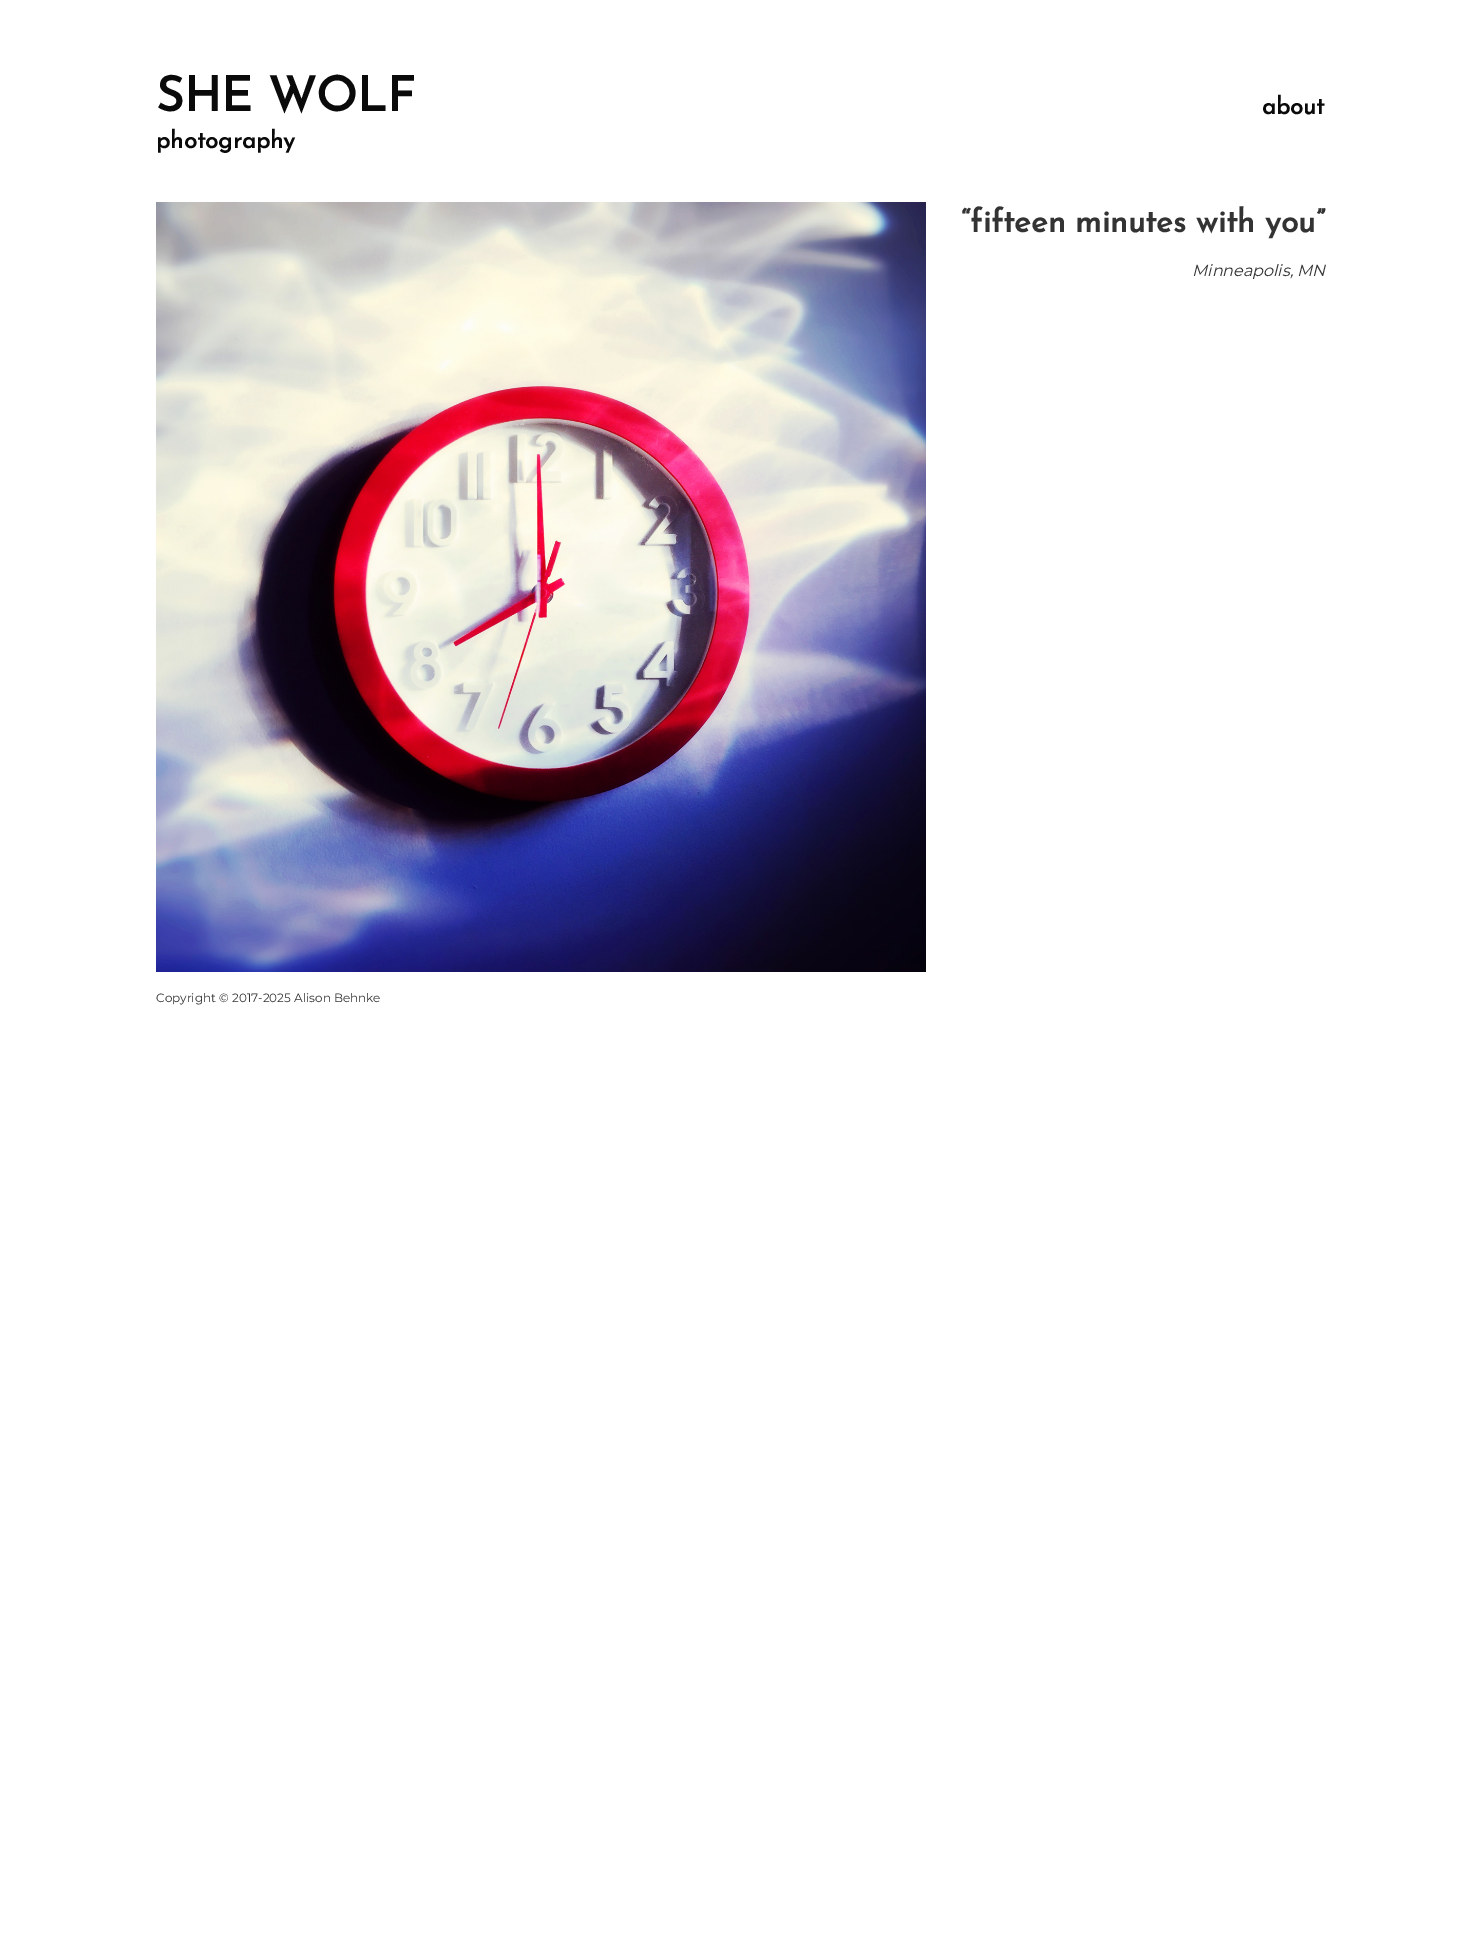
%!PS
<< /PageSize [1481 1959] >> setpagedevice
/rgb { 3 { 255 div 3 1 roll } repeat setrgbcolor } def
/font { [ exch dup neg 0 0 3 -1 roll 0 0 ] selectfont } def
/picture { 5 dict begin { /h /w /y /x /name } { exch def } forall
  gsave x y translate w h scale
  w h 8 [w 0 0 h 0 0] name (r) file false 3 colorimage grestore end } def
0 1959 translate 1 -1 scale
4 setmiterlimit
255 255 255 rgb
0 0 1481 1959 rectfill
(img/1.rgb) 156 202 770 770 picture
/JosefinSans-Bold 48 font
10 10 10 rgb
156 111 moveto (SHE WOLF) show
/JosefinSans-Bold 24 font
156 148 moveto (photography) show
1262 114 moveto (about) show
/JosefinSans-Bold 32 font
51 51 51 rgb
961 232 moveto (“fifteen minutes with you”) show
/Montserrat-ThinItalic 16 font
1192 276 moveto (Minneapolis, MN) show
/Montserrat-Thin 12 font
156 1002 moveto (Copyright © 2017-2025 Alison Behnke) show
showpage
